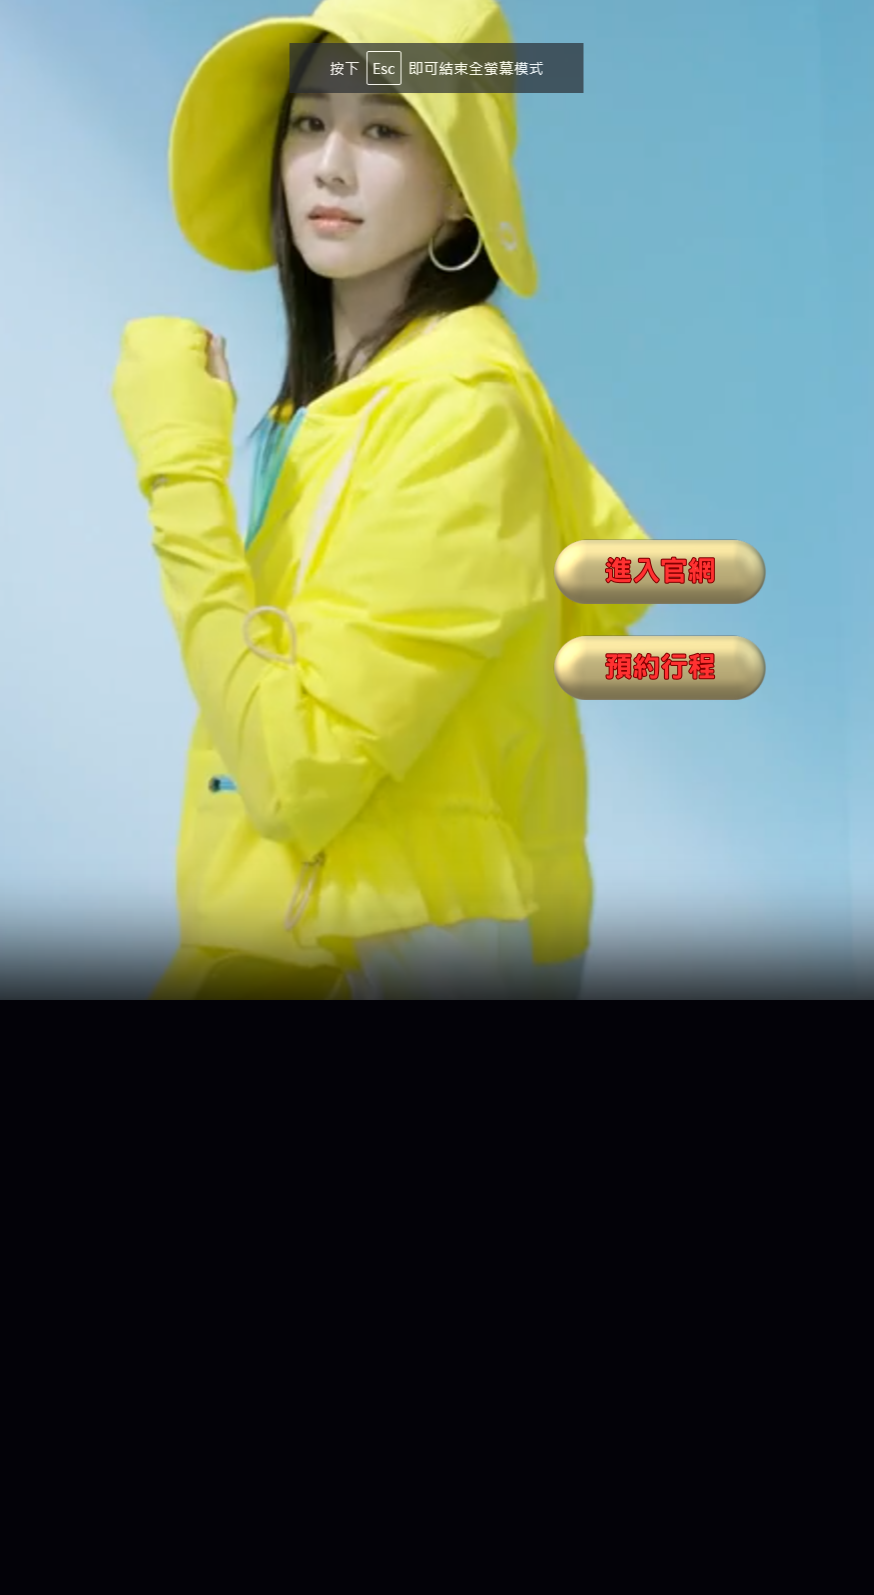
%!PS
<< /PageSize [874 1595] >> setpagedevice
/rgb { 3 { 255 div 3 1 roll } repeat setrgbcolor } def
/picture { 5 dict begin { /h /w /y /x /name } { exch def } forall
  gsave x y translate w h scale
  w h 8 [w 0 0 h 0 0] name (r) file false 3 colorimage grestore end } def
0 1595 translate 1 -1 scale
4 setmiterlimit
255 255 255 rgb
0 0 874 1595 rectfill
(img/1.rgb) 0 0 874 1595 picture
showpage
